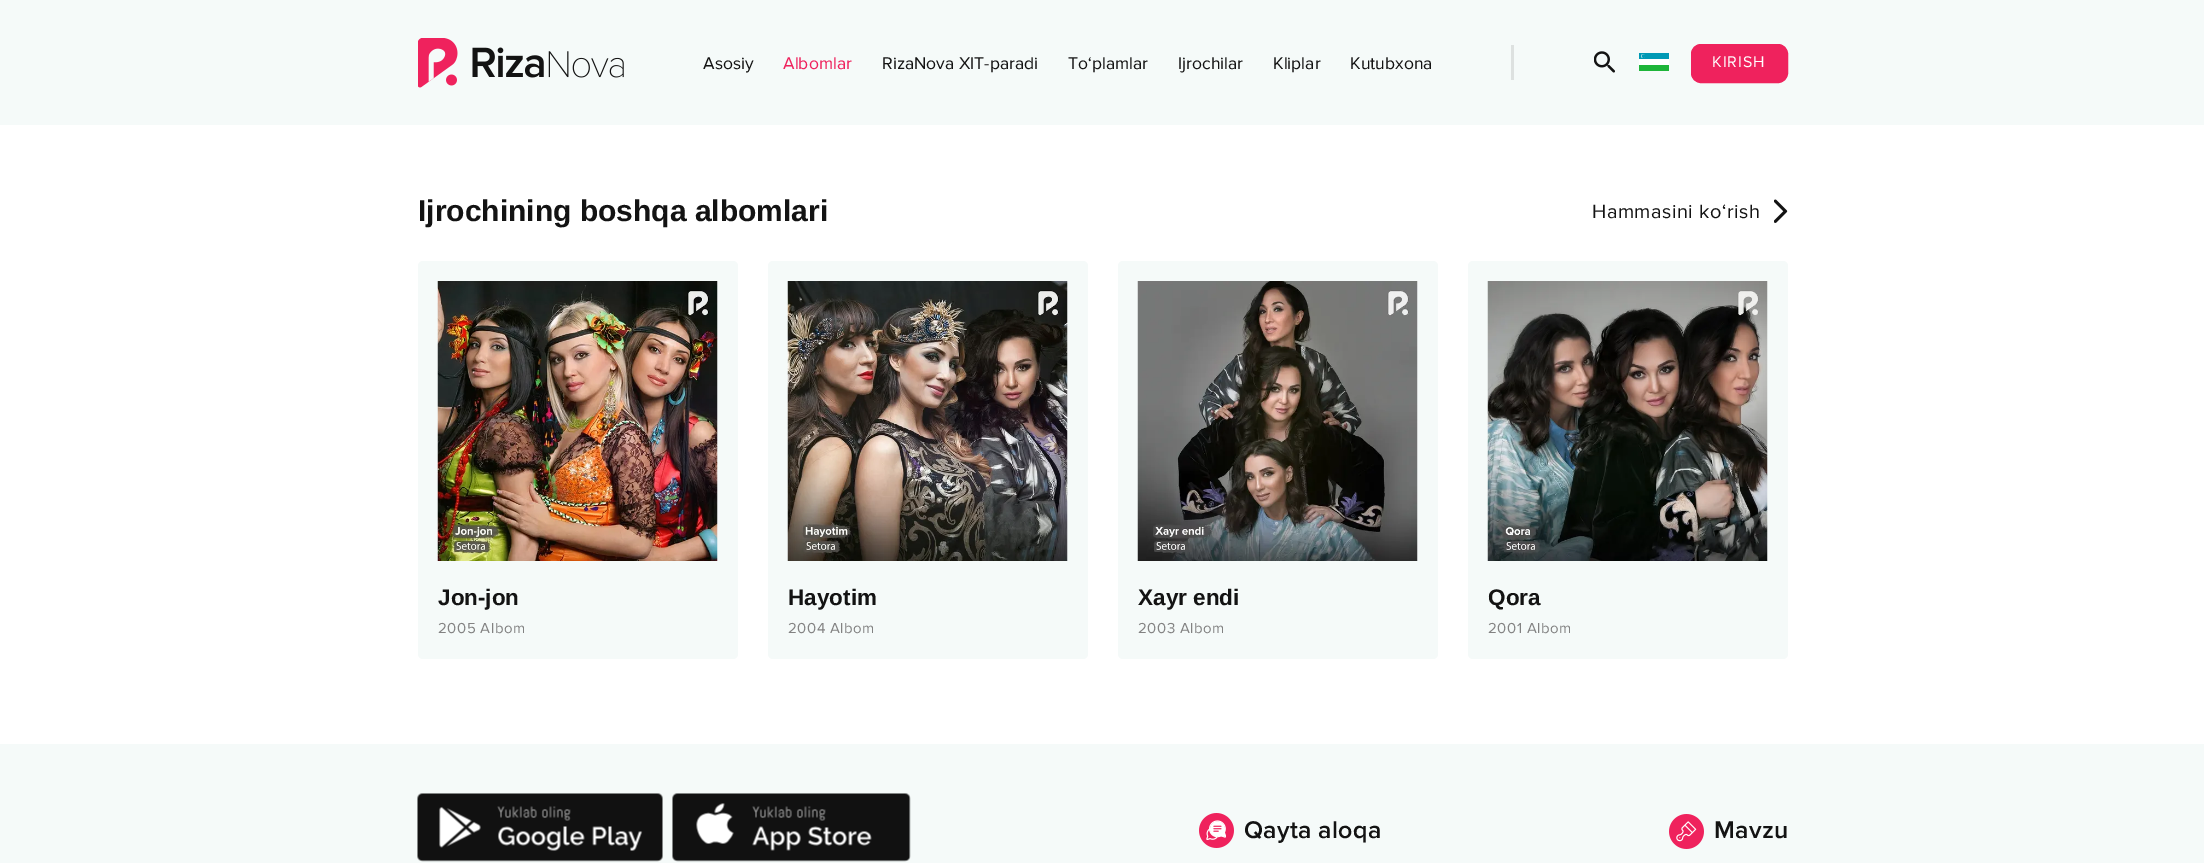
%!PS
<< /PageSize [2204 863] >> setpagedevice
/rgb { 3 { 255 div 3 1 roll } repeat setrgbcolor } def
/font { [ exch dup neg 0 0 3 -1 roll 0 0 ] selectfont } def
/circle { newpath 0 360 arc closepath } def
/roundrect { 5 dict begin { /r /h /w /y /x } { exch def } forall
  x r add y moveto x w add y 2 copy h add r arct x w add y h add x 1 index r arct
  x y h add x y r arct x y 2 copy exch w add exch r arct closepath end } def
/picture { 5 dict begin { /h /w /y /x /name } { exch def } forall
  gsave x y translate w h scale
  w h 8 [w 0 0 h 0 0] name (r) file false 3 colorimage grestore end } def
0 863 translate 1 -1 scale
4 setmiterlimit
255 255 255 rgb
0 0 2204 863 rectfill
245 250 249 rgb
0 0 2204 125 rectfill
(img/1.rgb) 418 38 206 50 picture
221 225 224 rgb
1511 45 3 35 rectfill
(img/2.rgb) 1594 51 21 22 picture
[
  [1639 65 30 6 30 181 58]
  [1639 53 30 6 0 153 181]
  [1639 59 30 6 255 255 255]
] { aload pop rgb rectfill } forall
1642.9 56.1 1.8 circle fill
0 153 181 rgb
1643.5 56.1 1.8 circle fill
239 34 93 rgb
1691.5 44.5 96 38 9.5 roundrect gsave fill grestore
stroke
(img/3.rgb) 1774 199 14 24 picture
245 250 249 rgb
418 261 320 398 5 roundrect fill
(img/4.rgb) 437 281 281 280 picture
768 261 320 398 5 roundrect fill
(img/5.rgb) 787 281 281 280 picture
1118 261 320 398 5 roundrect fill
(img/6.rgb) 1137 281 281 280 picture
1468 261 320 398 5 roundrect fill
(img/7.rgb) 1487 281 281 280 picture
0 744 2204 119 rectfill
(img/8.rgb) 417 793 246 69 picture
(img/9.rgb) 672 793 239 69 picture
(img/10.rgb) 1199 813 35 35 picture
(img/11.rgb) 1669 814 35 35 picture
/ProximaNova-Regular 17.5 font
19 19 19 rgb
703 69 moveto (Asosiy) show
239 34 93 rgb
783 69 moveto (Albomlar) show
19 19 19 rgb
[
  [(RizaNova XIT-paradi) 882 69]
  [(To‘plamlar) 1068 69]
  [(Ijrochilar) 1178 69]
  [(Kliplar) 1273 69]
  [(Kutubxona) 1350 69]
] { aload pop moveto show } forall
/ProximaNova-Regular 16 font
255 255 255 rgb
1712 67 moveto 1 0 (KIRISH) ashow
/LiberationSans-Bold 30 font
19 19 19 rgb
418 221 moveto (Ijrochining boshqa albomlari) show
/ProximaNova-Regular 20 font
1592 218 moveto 0.5 0 (Hammasini ko‘rish) ashow
/LiberationSans-Bold 22.5 font
438 605 moveto (Jon-jon) show
/ProximaNova-Regular 15 font
130 130 130 rgb
438 633 moveto 0.5 0 (2005 Albom) ashow
/LiberationSans-Bold 22.5 font
19 19 19 rgb
788 605 moveto (Hayotim) show
/ProximaNova-Regular 15 font
130 130 130 rgb
788 633 moveto 0.5 0 (2004 Albom) ashow
/LiberationSans-Bold 22.5 font
19 19 19 rgb
1138 605 moveto (Xayr endi) show
/ProximaNova-Regular 15 font
130 130 130 rgb
1138 633 moveto 0.5 0 (2003 Albom) ashow
/LiberationSans-Bold 22.5 font
19 19 19 rgb
1488 605 moveto (Qora) show
/ProximaNova-Regular 15 font
130 130 130 rgb
1488 633 moveto 0.5 0 (2001 Albom) ashow
/ProximaNova-SemiBold 25 font
19 19 19 rgb
1244 838 moveto 0.25 0 (Qayta aloqa) ashow
1714 838 moveto 0.25 0 (Mavzu) ashow
showpage
